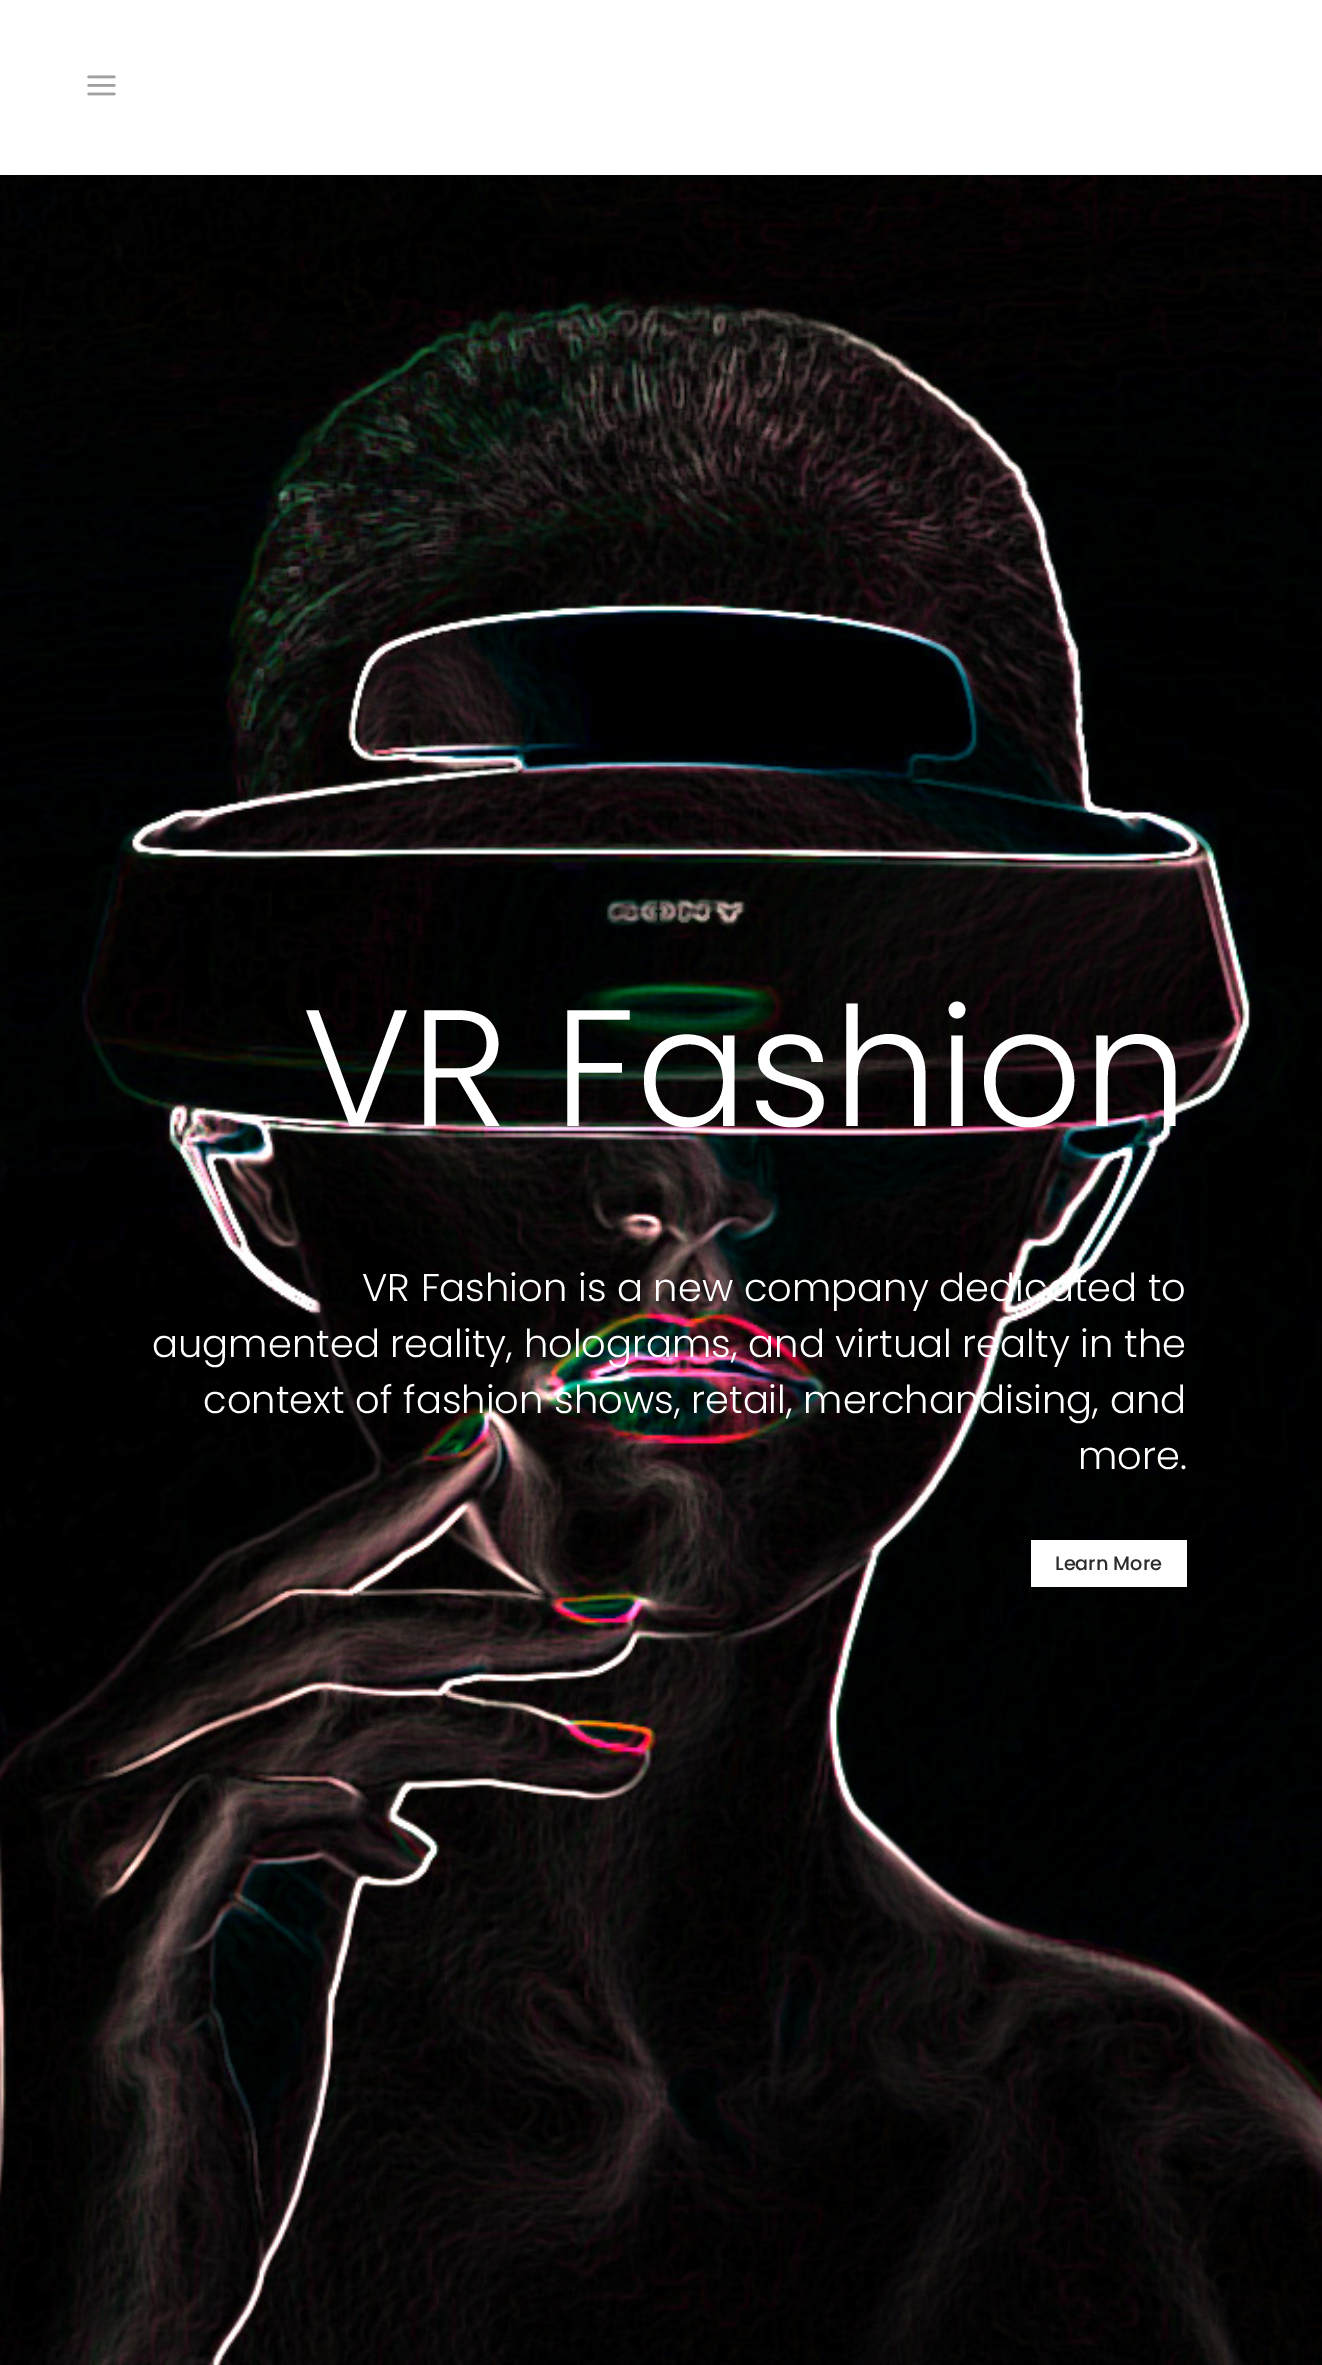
%!PS
<< /PageSize [1322 2365] >> setpagedevice
/rgb { 3 { 255 div 3 1 roll } repeat setrgbcolor } def
/font { [ exch dup neg 0 0 3 -1 roll 0 0 ] selectfont } def
/picture { 5 dict begin { /h /w /y /x /name } { exch def } forall
  gsave x y translate w h scale
  w h 8 [w 0 0 h 0 0] name (r) file false 3 colorimage grestore end } def
0 2365 translate 1 -1 scale
4 setmiterlimit
255 255 255 rgb
0 0 1322 2365 rectfill
(img/1.rgb) 87 75 29 21 picture
(img/2.rgb) 0 175 1322 2190 picture
1031 1540 156 47 rectfill
/Poppins-Light 166 font
302 1126 moveto (VR Fashion) show
/Poppins-Light 38.5 font
[
  [(VR Fashion is a new company dedicated to) 362 1301]
  [(augmented reality, holograms, and virtual realty in the) 152 1357]
  [(context of fashion shows, retail, merchandising, and) 203 1413]
  [(more.) 1078 1469]
] { aload pop moveto show } forall
/Poppins-Medium 19.25 font
44 44 44 rgb
1055 1570 moveto (Learn More) show
showpage
